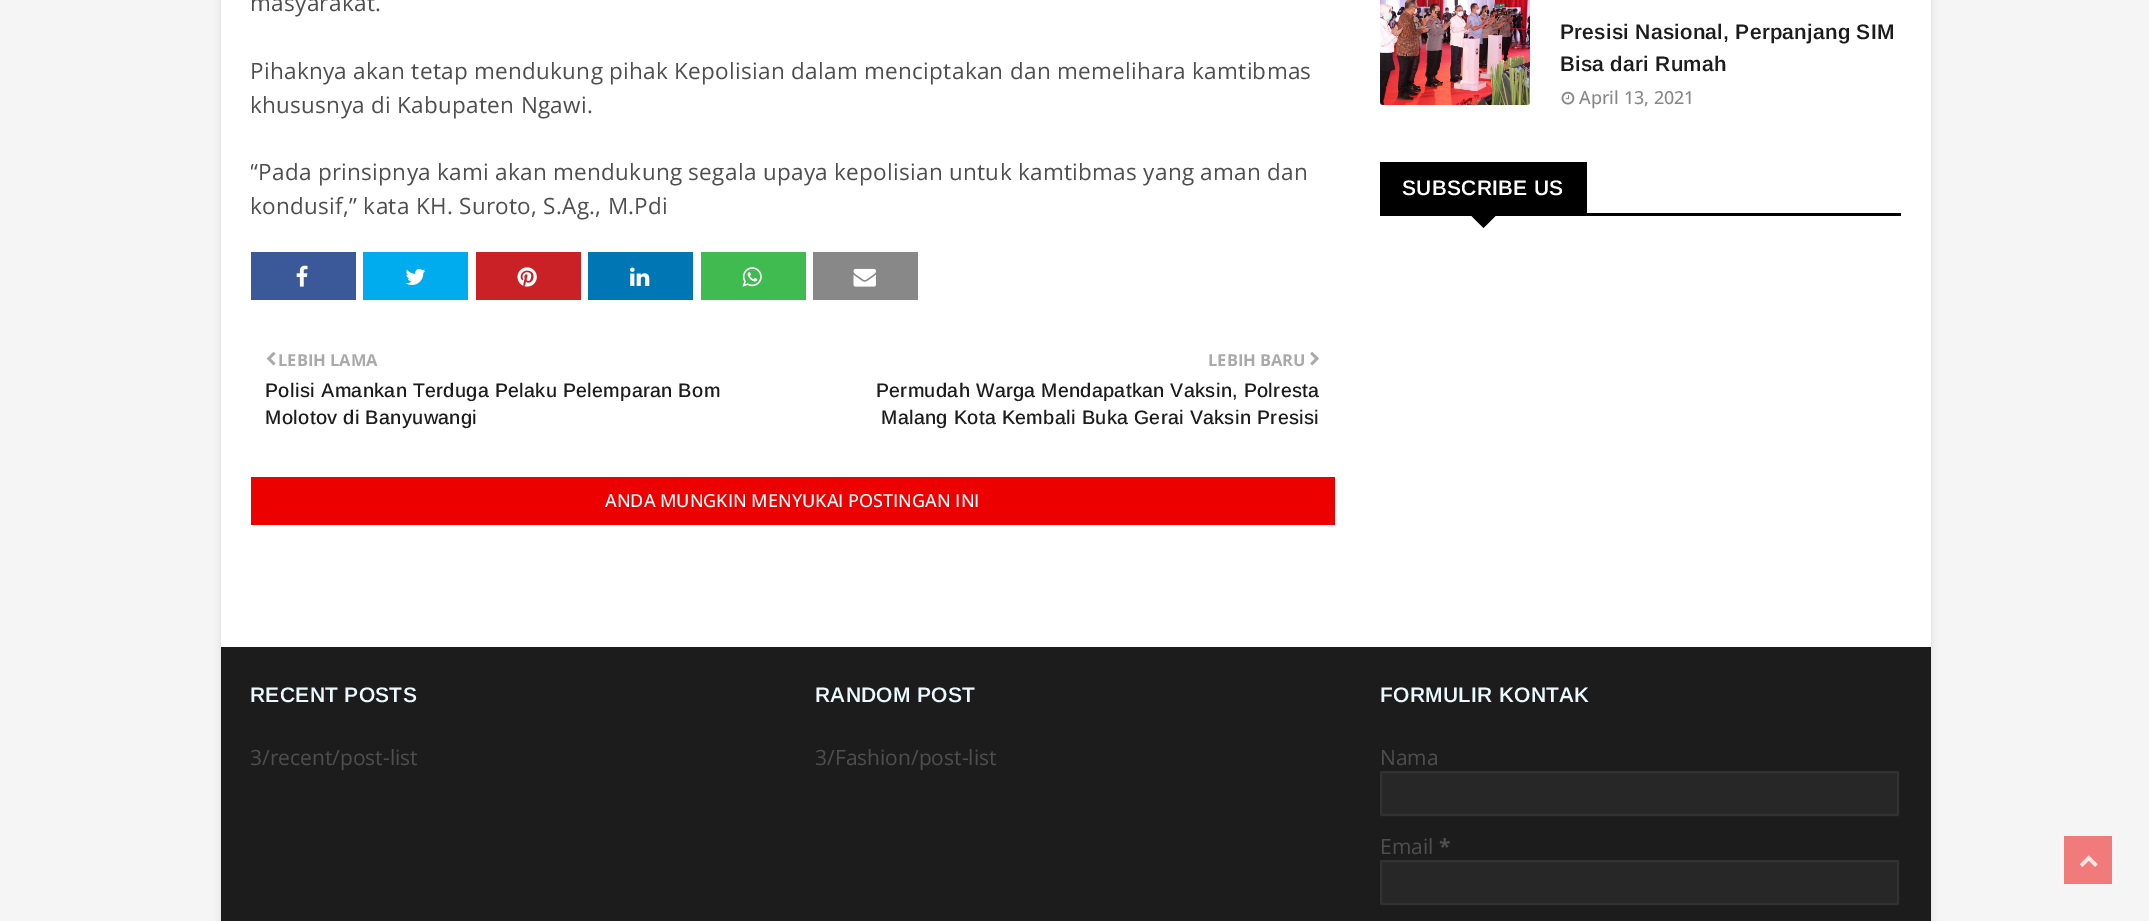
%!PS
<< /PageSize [2149 921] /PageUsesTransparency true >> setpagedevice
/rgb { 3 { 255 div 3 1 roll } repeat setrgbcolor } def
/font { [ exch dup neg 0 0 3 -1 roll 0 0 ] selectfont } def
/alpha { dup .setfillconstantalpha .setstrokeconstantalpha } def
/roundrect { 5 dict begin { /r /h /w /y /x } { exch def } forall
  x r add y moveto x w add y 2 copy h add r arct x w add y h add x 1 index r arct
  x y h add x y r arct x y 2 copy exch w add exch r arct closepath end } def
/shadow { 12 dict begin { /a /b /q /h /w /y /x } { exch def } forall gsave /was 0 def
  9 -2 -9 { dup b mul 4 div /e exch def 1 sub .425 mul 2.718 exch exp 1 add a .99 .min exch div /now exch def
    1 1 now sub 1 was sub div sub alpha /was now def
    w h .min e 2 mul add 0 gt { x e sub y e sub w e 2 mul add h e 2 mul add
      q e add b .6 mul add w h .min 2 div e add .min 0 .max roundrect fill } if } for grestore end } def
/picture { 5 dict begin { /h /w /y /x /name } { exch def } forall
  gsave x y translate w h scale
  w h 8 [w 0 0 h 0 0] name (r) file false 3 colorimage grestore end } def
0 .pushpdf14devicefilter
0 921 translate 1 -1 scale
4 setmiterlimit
245 245 245 rgb
0 0 2149 921 rectfill
0 0 0 rgb
221 -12 1710 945 0 4 0.1 shadow
255 255 255 rgb
221 0 1710 647 rectfill
59 89 153 rgb
251 252 105 48 rectfill
(img/1.rgb) 296 265 12 22 picture
0 172 238 rgb
363 252 105 48 rectfill
(img/2.rgb) 405 268 21 17 picture
202 33 39 rgb
476 252 105 48 rectfill
(img/3.rgb) 517 267 20 20 picture
0 119 181 rgb
588 252 105 48 rectfill
(img/4.rgb) 630 267 20 19 picture
63 187 80 rgb
701 252 105 48 rectfill
(img/5.rgb) 742 267 20 20 picture
136 136 136 rgb
813 252 105 48 rectfill
(img/6.rgb) 853 268 23 19 picture
(img/7.rgb) 266 352 10 14 picture
(img/8.rgb) 1310 352 9 14 picture
236 0 0 rgb
251 477 1084 48 rectfill
248 248 248 rgb
1380 102 150 3 rectfill
(img/9.rgb) 1380 0 150 105 picture
(img/10.rgb) 1561 91 14 14 picture
0 0 0 rgb
1380 213 521 3 rectfill
1380 162 207 51 rectfill
1468.5 213 moveto 1498.5 213 lineto 1483.5 228 lineto closepath fill
28 28 28 rgb
221 647 1710 274 rectfill
39 39 39 rgb
1380 771 519 45 3 roundrect fill
0.05 alpha
255 255 255 rgb
2 setlinewidth
1381 772 517 43 rectstroke
1 alpha
39 39 39 rgb
1380 860 519 45 3 roundrect fill
0.05 alpha
255 255 255 rgb
1381 861 517 43 rectstroke
1 alpha
241 123 123 rgb
2064 836 48 48 rectfill
(img/11.rgb) 2080 855 18 12 picture
/OpenSans-Regular 22.5 font
78 78 78 rgb
250 11 moveto 0.3 0 (masyarakat.) ashow
250 79 moveto 0.3 0 (Pihaknya akan tetap mendukung pihak Kepolisian dalam menciptakan dan memelihara kamtibmas) ashow
250 113 moveto 0.3 0 (khususnya di Kabupaten Ngawi.) ashow
gsave
251 0 1084 222 rectclip
250 180 moveto 0.3 0 (“Pada prinsipnya kami akan mendukung segala upaya kepolisian untuk kamtibmas yang aman dan) ashow
grestore
250 214 moveto 0.3 0 (kondusif,” kata KH. Suroto, S.Ag., M.Pdi) ashow
/OpenSans-Bold 16.5 font
170 170 170 rgb
278 366 moveto (LEBIH LAMA) show
/Arimo-Medium 19.5 font
28 28 28 rgb
265 397 moveto 0.3 0 (Polisi Amankan Terduga Pelaku Pelemparan Bom) ashow
265 424 moveto 0.3 0 (Molotov di Banyuwangi) ashow
/OpenSans-Bold 16.5 font
170 170 170 rgb
1208 366 moveto (LEBIH BARU) show
/Arimo-Medium 19.5 font
28 28 28 rgb
876 397 moveto 0.3 0 (Permudah Warga Mendapatkan Vaksin, Polresta) ashow
881 424 moveto 0.3 0 (Malang Kota Kembali Buka Gerai Vaksin Presisi) ashow
/OpenSans-Medium 18 font
255 255 255 rgb
605 507 moveto (ANDA MUNGKIN MENYUKAI POSTINGAN INI) show
/Arimo-SemiBold 21 font
28 28 28 rgb
1560 39 moveto 0.3 0 (Presisi Nasional, Perpanjang SIM) ashow
1560 71 moveto 0.3 0 (Bisa dari Rumah) ashow
/OpenSans-Medium 18 font
136 136 136 rgb
1579 104 moveto (April 13, 2021) show
/Arimo-SemiBold 21 font
255 255 255 rgb
1402 195 moveto 0.3 0 (SUBSCRIBE US) ashow
235 249 255 rgb
250 702 moveto 0.3 0 (RECENT POSTS) ashow
/OpenSans-Regular 21 font
78 78 78 rgb
250 765 moveto (3/recent/post-list) show
/Arimo-SemiBold 21 font
235 249 255 rgb
815 702 moveto 0.3 0 (RANDOM POST) ashow
/OpenSans-Regular 21 font
78 78 78 rgb
815 765 moveto (3/Fashion/post-list) show
/Arimo-SemiBold 21 font
235 249 255 rgb
1380 702 moveto 0.3 0 (FORMULIR KONTAK) ashow
/OpenSans-Regular 21 font
78 78 78 rgb
1380 765 moveto (Nama) show
1380 854 moveto (Email) show
/OpenSans-Bold 21 font
1439 854 moveto (*) show
.poppdf14devicefilter showpage
